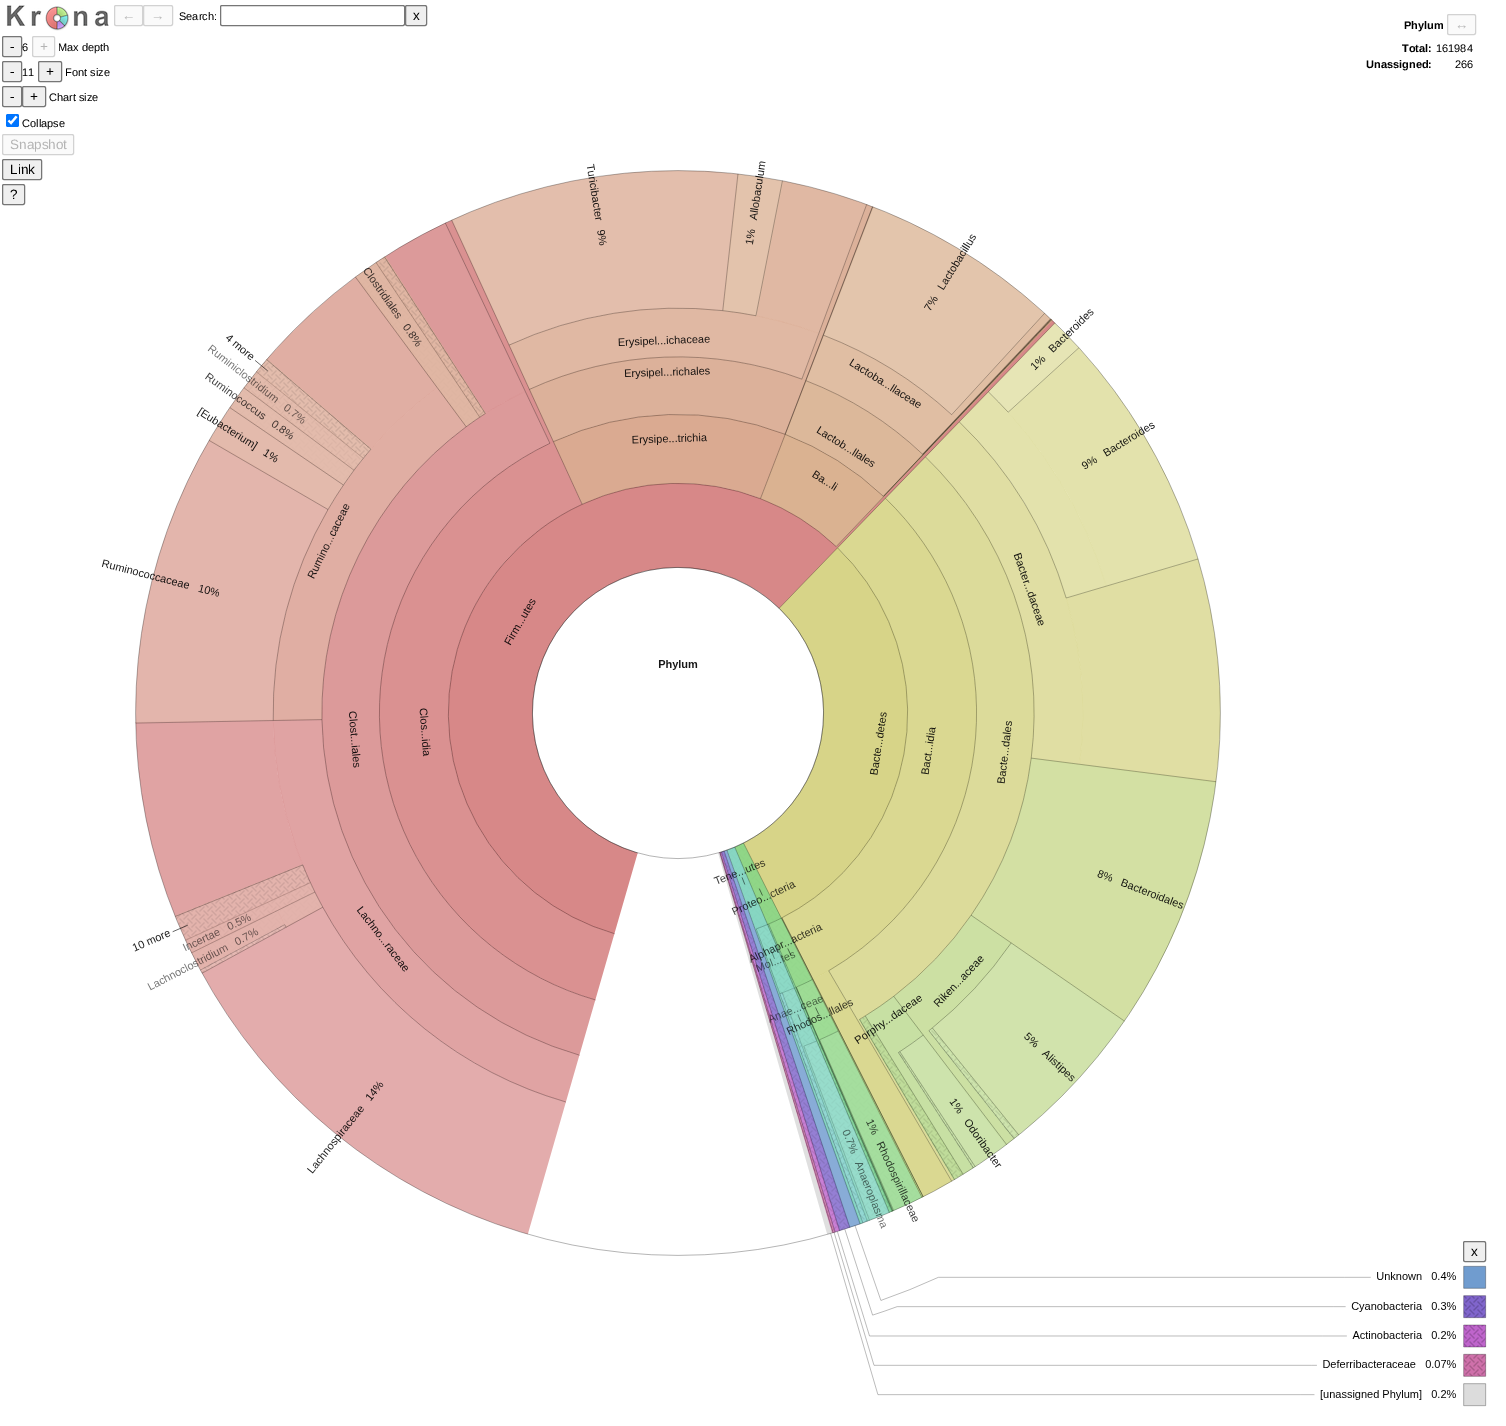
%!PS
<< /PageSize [1506 1426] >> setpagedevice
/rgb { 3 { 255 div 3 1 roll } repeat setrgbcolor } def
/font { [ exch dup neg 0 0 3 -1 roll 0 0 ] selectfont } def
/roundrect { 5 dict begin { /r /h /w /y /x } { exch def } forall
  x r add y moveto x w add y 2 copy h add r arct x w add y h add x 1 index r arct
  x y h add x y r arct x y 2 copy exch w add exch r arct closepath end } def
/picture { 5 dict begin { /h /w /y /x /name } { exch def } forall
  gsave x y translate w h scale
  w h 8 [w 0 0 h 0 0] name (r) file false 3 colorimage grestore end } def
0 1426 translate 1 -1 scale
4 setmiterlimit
255 255 255 rgb
0 0 1506 1426 rectfill
(img/1.rgb) 6 5 103 26 picture
250 250 250 rgb
114.5 5.5 28 20 1.5 roundrect gsave fill grestore
210 210 210 rgb
stroke
250 250 250 rgb
143.5 5.5 29 20 1.5 roundrect gsave fill grestore
210 210 210 rgb
stroke
118 118 118 rgb
220.5 5.5 184 20 1.5 roundrect stroke
239 239 239 rgb
405.5 5.5 21 20 1.5 roundrect gsave fill grestore
118 118 118 rgb
stroke
239 239 239 rgb
2.5 36.5 19 20 1.5 roundrect gsave fill grestore
118 118 118 rgb
stroke
250 250 250 rgb
32.5 36.5 22 20 1.5 roundrect gsave fill grestore
210 210 210 rgb
stroke
239 239 239 rgb
2.5 61.5 19 20 1.5 roundrect gsave fill grestore
118 118 118 rgb
stroke
239 239 239 rgb
38.5 61.5 23 20 1.5 roundrect gsave fill grestore
118 118 118 rgb
stroke
239 239 239 rgb
2.5 86.5 19 20 1.5 roundrect gsave fill grestore
118 118 118 rgb
stroke
239 239 239 rgb
22.5 86.5 23 20 1.5 roundrect gsave fill grestore
118 118 118 rgb
stroke
0 117 255 rgb
6 114 13 13 2 roundrect fill
255 255 255 rgb
2.1 setlinewidth
8.5 120.5 moveto 11 123 lineto 16.5 116.5 lineto stroke
250 250 250 rgb
2.5 134.5 71 20 1.5 roundrect gsave fill grestore
210 210 210 rgb
1 setlinewidth
stroke
239 239 239 rgb
2.5 159.5 39 20 1.5 roundrect gsave fill grestore
118 118 118 rgb
stroke
239 239 239 rgb
2.5 184.5 22 20 1.5 roundrect gsave fill grestore
118 118 118 rgb
stroke
250 250 250 rgb
1447.5 14.5 28 20 1.5 roundrect gsave fill grestore
210 210 210 rgb
stroke
(img/2.rgb) 101 161 1386 1246 picture
239 239 239 rgb
1463.5 1241.5 22 20 1.5 roundrect gsave fill grestore
118 118 118 rgb
stroke
/LiberationSans-Regular 13.5 font
180 180 180 rgb
122 20 moveto (←) show
151 20 moveto (→) show
/LiberationSans-Regular 11 font
0 0 0 rgb
179 20 moveto (Search:) show
/LiberationSans-Regular 13.5 font
413 20 moveto (x) show
10 51 moveto (-) show
/LiberationSans-Regular 11 font
22 51 moveto (6) show
/LiberationSans-Regular 13.5 font
180 180 180 rgb
40 51 moveto (+) show
/LiberationSans-Regular 11 font
0 0 0 rgb
58 51 moveto (Max depth) show
/LiberationSans-Regular 13.5 font
10 76 moveto (-) show
/LiberationSans-Regular 11 font
22 76 moveto (11) show
/LiberationSans-Regular 13.5 font
46 76 moveto (+) show
/LiberationSans-Regular 11 font
65 76 moveto (Font size) show
/LiberationSans-Regular 13.5 font
10 101 moveto (-) show
30 101 moveto (+) show
/LiberationSans-Regular 11 font
49 101 moveto (Chart size) show
22 127 moveto (Collapse) show
/LiberationSans-Regular 13.5 font
180 180 180 rgb
10 149 moveto (Snapshot) show
0 0 0 rgb
10 174 moveto (Link) show
10 199 moveto (?) show
/LiberationSans-Bold 11 font
1404 29 moveto (Phylum) show
/LiberationSans-Regular 13.5 font
180 180 180 rgb
1455 29 moveto (↔) show
/LiberationSans-Bold 11 font
0 0 0 rgb
1402 52 moveto (Total:) show
/LiberationSans-Regular 11 font
1436 52 moveto (161984) show
/LiberationSans-Bold 11 font
1366 68 moveto (Unassigned:) show
/LiberationSans-Regular 11 font
1455 68 moveto (266) show
/LiberationSans-Regular 13.5 font
1471 1256 moveto (x) show
showpage
